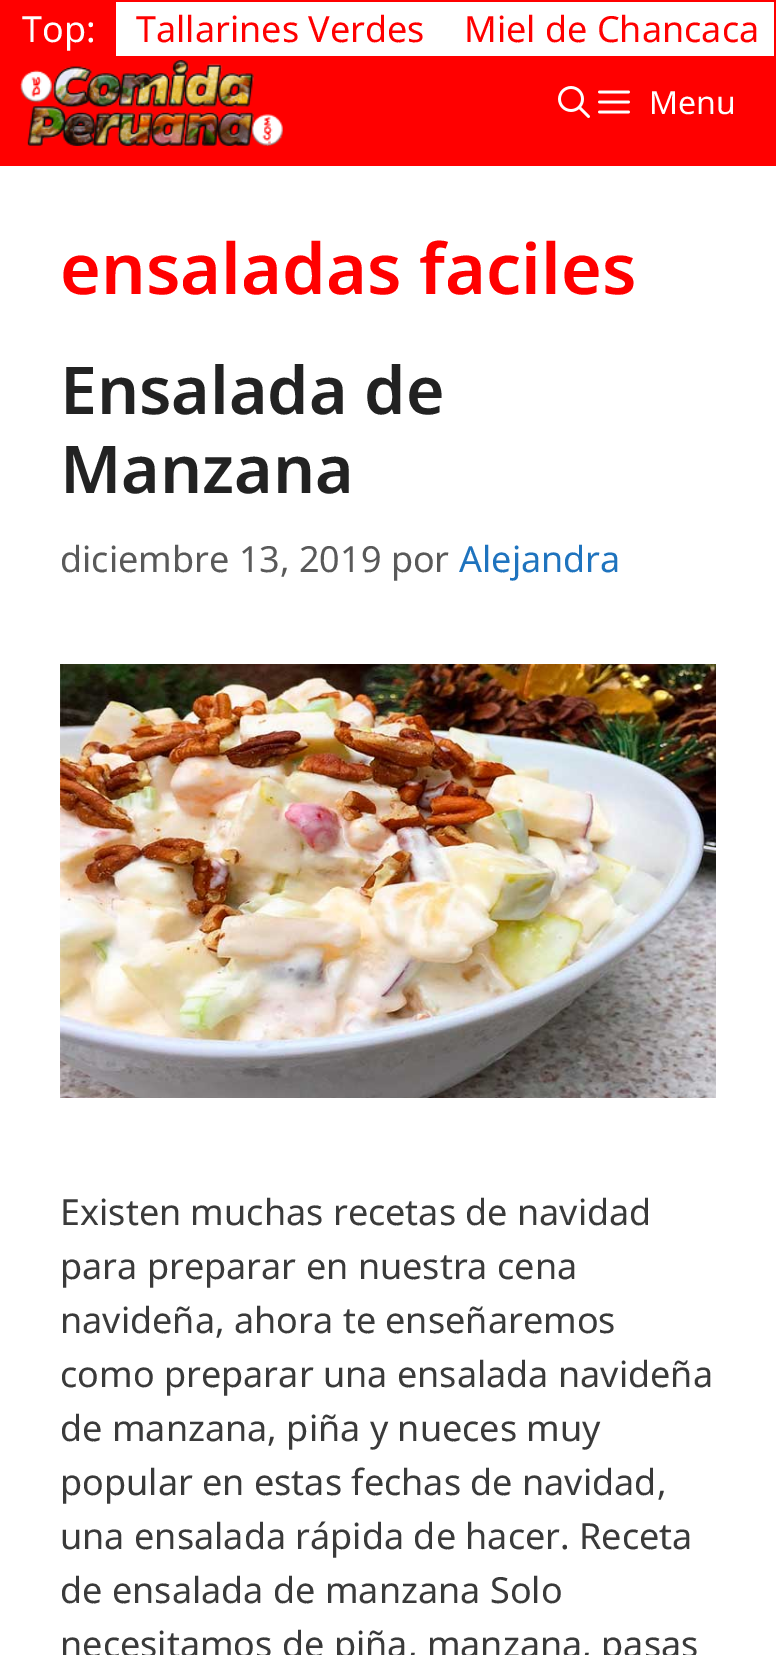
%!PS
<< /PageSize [776 1655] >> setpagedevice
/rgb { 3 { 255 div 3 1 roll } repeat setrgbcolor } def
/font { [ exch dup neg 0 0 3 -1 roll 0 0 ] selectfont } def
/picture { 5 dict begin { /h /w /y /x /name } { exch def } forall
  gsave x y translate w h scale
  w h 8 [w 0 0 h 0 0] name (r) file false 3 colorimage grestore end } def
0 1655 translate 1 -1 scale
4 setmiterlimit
255 255 255 rgb
0 0 776 1655 rectfill
255 0 0 rgb
0 0 776 166 rectfill
255 255 255 rgb
116 2 658 54 rectfill
(img/1.rgb) 20 60 263 86 picture
(img/2.rgb) 558 86 32 32 picture
(img/3.rgb) 598 90 32 24 picture
(img/4.rgb) 60 664 656 434 picture
/NotoSans-Regular 36 font
22 42 moveto (Top:) show
255 0 0 rgb
136 42 moveto (Tallarines Verdes) show
464 42 moveto (Miel de Chancaca) show
/NotoSans-Regular 32 font
255 255 255 rgb
649 114 moveto (Menu) show
/NotoSans-SemiBold 70 font
255 0 0 rgb
60 294 moveto (ensaladas faciles) show
/NotoSans-SemiBold 66 font
34 34 34 rgb
60 414 moveto (Ensalada de) show
60 493 moveto (Manzana) show
/NotoSans-Regular 36 font
89 89 89 rgb
60 572 moveto (diciembre 13, 2019 por) show
30 115 190 rgb
459 572 moveto (Alejandra) show
58 58 58 rgb
[
  [(Existen muchas recetas de navidad) 60 1225]
  [(para preparar en nuestra cena) 60 1279]
  [(navideña, ahora te enseñaremos) 60 1333]
  [(como preparar una ensalada navideña) 60 1387]
  [(de manzana, piña y nueces muy) 60 1441]
  [(popular en estas fechas de navidad,) 60 1495]
  [(una ensalada rápida de hacer. Receta) 60 1549]
  [(de ensalada de manzana Solo) 60 1603]
  [(necesitamos de piña, manzana, pasas) 60 1657]
] { aload pop moveto show } forall
showpage
